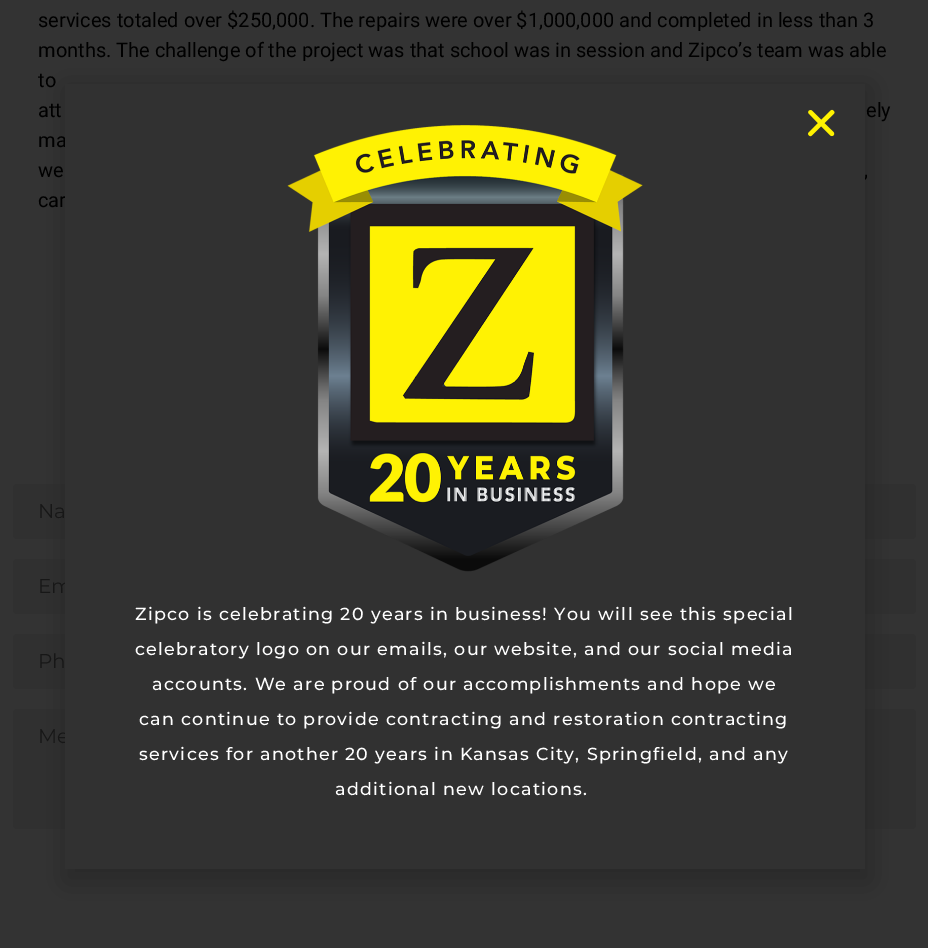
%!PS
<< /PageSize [928 948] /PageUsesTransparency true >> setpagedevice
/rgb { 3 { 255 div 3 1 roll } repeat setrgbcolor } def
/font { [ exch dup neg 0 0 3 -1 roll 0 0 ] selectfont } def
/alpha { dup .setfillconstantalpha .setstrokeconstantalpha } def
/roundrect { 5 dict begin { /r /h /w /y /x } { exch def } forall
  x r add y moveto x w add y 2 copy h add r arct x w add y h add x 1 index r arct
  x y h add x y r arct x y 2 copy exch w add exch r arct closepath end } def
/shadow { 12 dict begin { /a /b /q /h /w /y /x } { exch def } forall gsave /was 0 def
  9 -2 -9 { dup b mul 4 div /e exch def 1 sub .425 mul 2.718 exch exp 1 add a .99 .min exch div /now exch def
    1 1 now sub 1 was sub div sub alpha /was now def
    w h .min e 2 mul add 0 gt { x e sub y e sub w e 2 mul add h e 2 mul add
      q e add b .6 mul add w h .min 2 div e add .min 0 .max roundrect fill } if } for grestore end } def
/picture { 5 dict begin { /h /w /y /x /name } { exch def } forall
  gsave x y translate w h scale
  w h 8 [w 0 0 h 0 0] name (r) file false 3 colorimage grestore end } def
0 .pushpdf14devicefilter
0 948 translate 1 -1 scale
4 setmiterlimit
51 51 51 rgb
0 0 928 948 rectfill
48 48 48 rgb
13 484 903 55 4 roundrect fill
13 559 903 55 4 roundrect fill
13 634 903 55 4 roundrect fill
13 709 903 120 4 roundrect fill
0 0 0 rgb
64 86 807 797 0 14.5 0.2 shadow
/Roboto-Regular 20 font
[
  [(services totaled over $250,000. The repairs were over $1,000,000 and completed in less than 3) 38 27]
  [(months. The challenge of the project was that school was in session and Zipco’s team was able) 38 57]
  [(to) 38 87]
  [(att) 38 117]
  [(ely) 866 117]
  [(ma) 38 147]
  [(we) 38 177]
  [(,) 864 177]
  [(car) 38 207]
] { aload pop moveto show } forall
/Montserrat-Regular 20 font
23 23 23 rgb
[
  [(Na) 38 518]
  [(Em) 38 593]
  [(Ph) 38 668]
  [(Me) 38 743]
] { aload pop moveto show } forall
49 49 49 rgb
65 84 800 785 rectfill
(img/1.rgb) 808 109 27 28 picture
(img/2.rgb) 287 125 356 447 picture
/Montserrat-Medium 17.5 font
255 255 255 rgb
135 620 moveto 1.25 0 (Zipco is celebrating 20 years in business! You will see this special) ashow
135 655 moveto 1.25 0 (celebratory logo on our emails, our website, and our social media) ashow
152 690 moveto 1.25 0 (accounts. We are proud of our accomplishments and hope we) ashow
139 725 moveto 1.25 0 (can continue to provide contracting and restoration contracting) ashow
139 760 moveto 1.25 0 (services for another 20 years in Kansas City, Springfield, and any) ashow
335 795 moveto 1.25 0 (additional new locations.) ashow
.poppdf14devicefilter showpage
